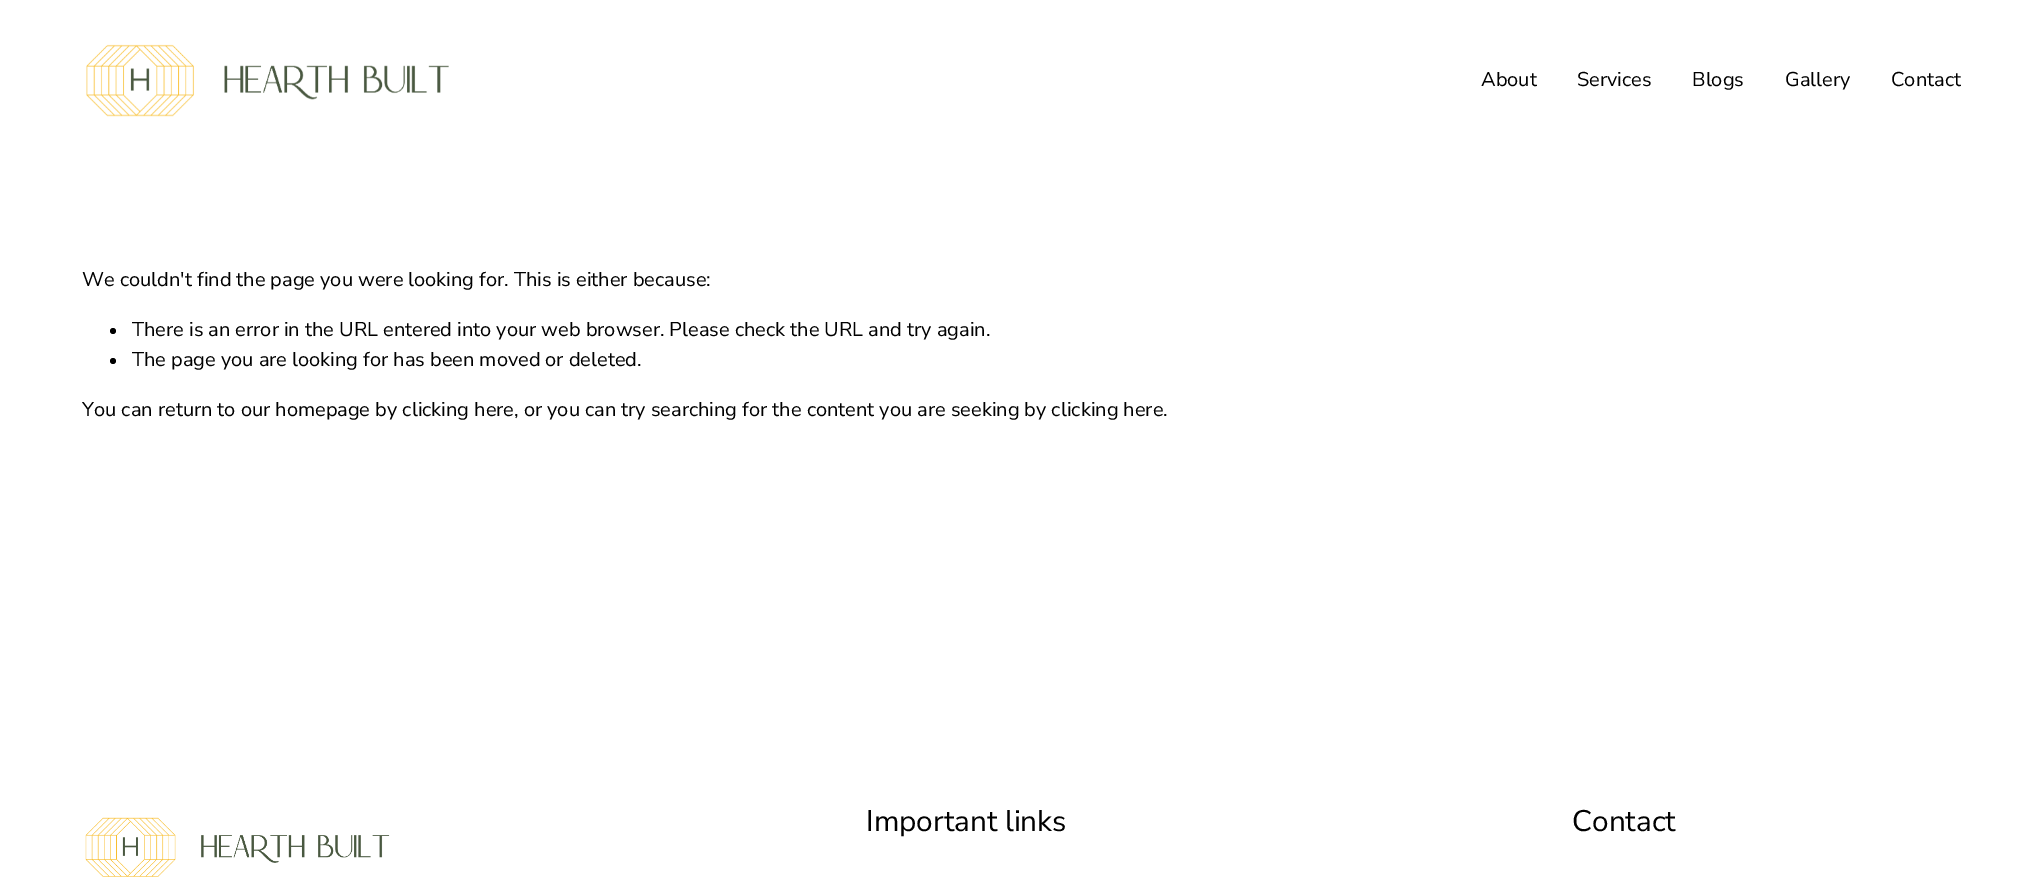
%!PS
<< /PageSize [2042 882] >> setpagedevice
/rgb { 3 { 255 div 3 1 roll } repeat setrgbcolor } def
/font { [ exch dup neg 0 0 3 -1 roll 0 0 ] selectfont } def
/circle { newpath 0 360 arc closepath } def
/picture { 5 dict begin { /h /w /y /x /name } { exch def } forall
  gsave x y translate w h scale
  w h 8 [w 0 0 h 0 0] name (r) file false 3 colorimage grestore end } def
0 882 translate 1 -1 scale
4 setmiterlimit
255 255 255 rgb
0 0 2042 882 rectfill
(img/1.rgb) 86 44 363 73 picture
0 0 0 rgb
113 331 3 circle fill
113 361 3 circle fill
(img/2.rgb) 85 817 305 60 picture
/NunitoSans-Regular 20 font
[
  [(About) 1481 86]
  [(Services) 1577 86]
  [(Blogs) 1692 86]
  [(Gallery) 1785 86]
  [(Contact) 1891 86]
  [(We couldn't find the page you were looking for. This is either because:) 82 286]
  [(There is an error in the URL entered into your web browser. Please check the URL and try again.) 132 336]
  [(The page you are looking for has been moved or deleted.) 132 366]
  [(You can return to our homepage by clicking here, or you can try searching for the content you are seeking by clicking here.) 82 416]
] { aload pop moveto show } forall
/NunitoSans-Regular 29.75 font
866 831 moveto (Important links) show
1572 831 moveto (Contact) show
showpage
